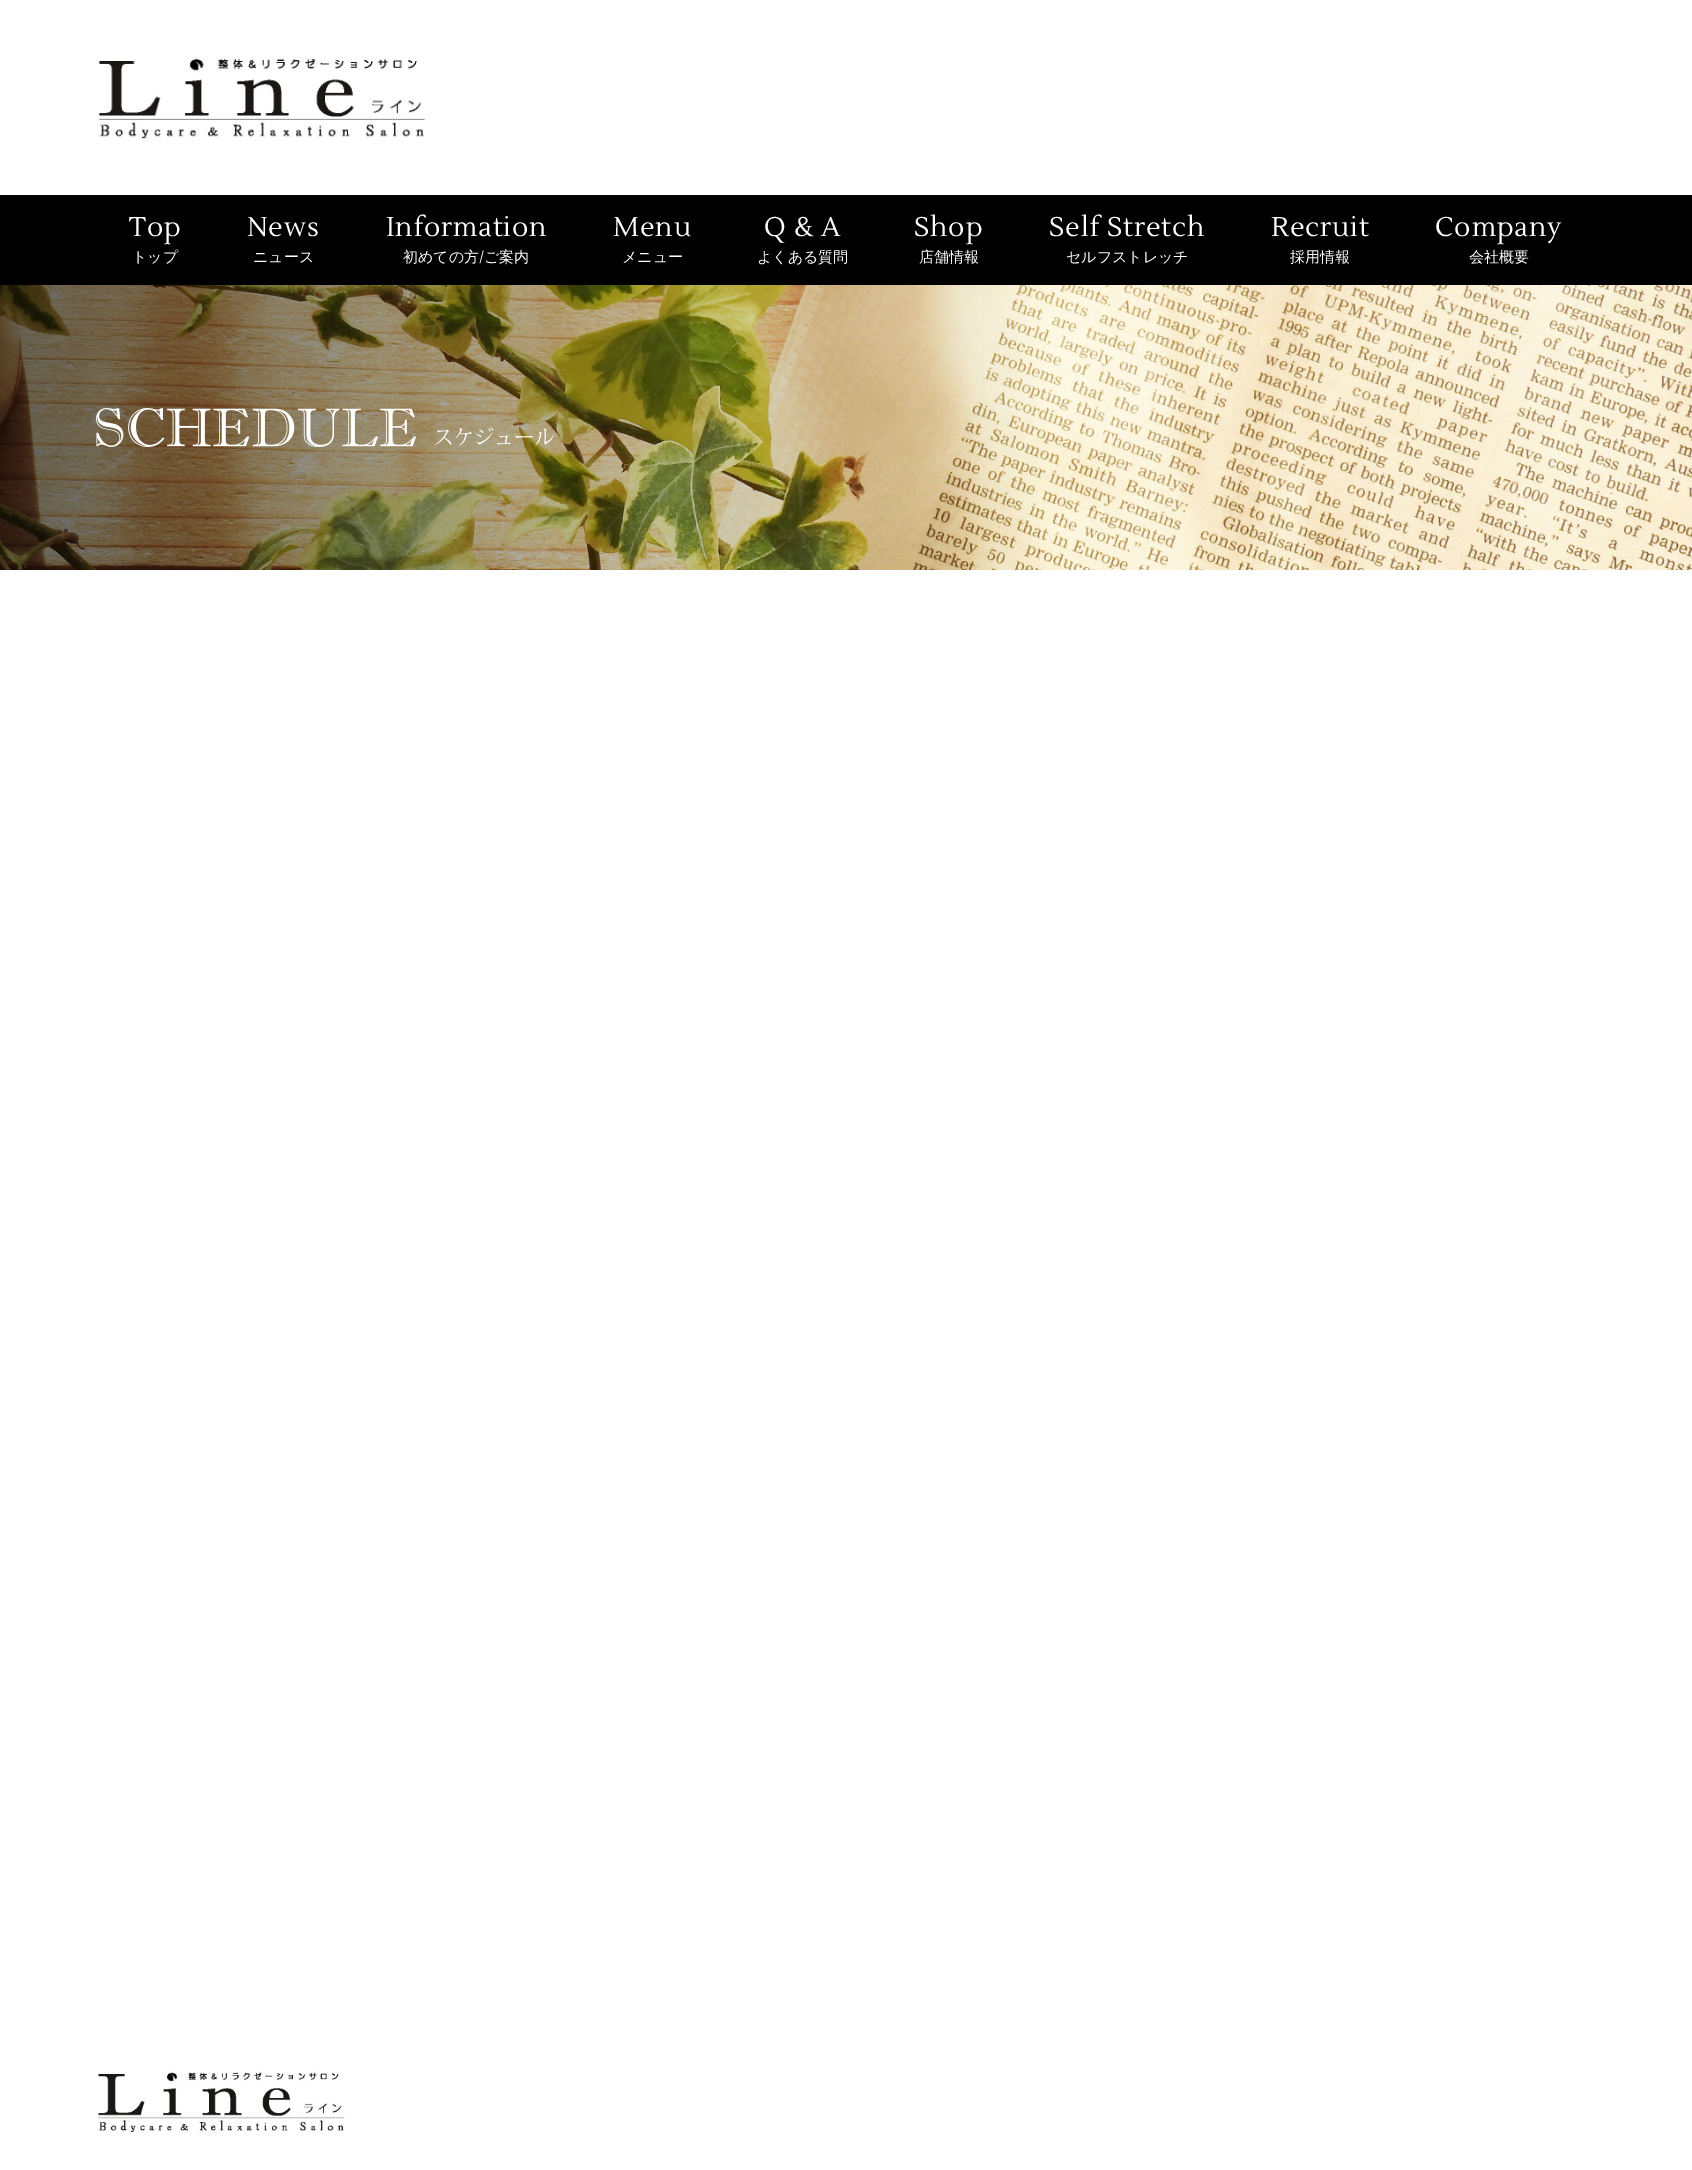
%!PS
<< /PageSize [1692 2170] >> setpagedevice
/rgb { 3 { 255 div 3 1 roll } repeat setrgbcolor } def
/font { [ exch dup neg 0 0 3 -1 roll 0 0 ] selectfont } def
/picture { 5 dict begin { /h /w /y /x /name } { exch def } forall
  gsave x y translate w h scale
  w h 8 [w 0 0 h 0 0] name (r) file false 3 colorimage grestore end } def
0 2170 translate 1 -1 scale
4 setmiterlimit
255 255 255 rgb
0 0 1692 2170 rectfill
(img/1.rgb) 98 56 327 84 picture
0 0 0 rgb
0 195 1692 90 rectfill
(img/2.rgb) 0 285 1692 285 picture
(img/3.rgb) 96 408 458 39 picture
(img/4.rgb) 98 2071 247 61 picture
/Lustria-Regular 27 font
255 255 255 rgb
129 236 moveto 0.9 0 (Top) ashow
/WenQuanYiZenHei-Medium 15 font
132 262 moveto (トップ) show
/Lustria-Regular 27 font
247 236 moveto 0.9 0 (News) ashow
/WenQuanYiZenHei-Medium 15 font
253 262 moveto (ニュース) show
/Lustria-Regular 27 font
386 236 moveto 0.9 0 (Information) ashow
/WenQuanYiZenHei-Medium 15 font
403 262 moveto (初めての方) show
/Lustria-Regular 15 font
479 262 moveto (/) show
/WenQuanYiZenHei-Medium 15 font
484 262 moveto (ご案内) show
/Lustria-Regular 27 font
613 236 moveto 0.9 0 (Menu) ashow
/WenQuanYiZenHei-Medium 15 font
622 262 moveto (メニュー) show
/Lustria-Regular 27 font
764 236 moveto 0.9 0 (Q & A) ashow
/WenQuanYiZenHei-Medium 15 font
757 262 moveto (よくある質問) show
/Lustria-Regular 27 font
914 236 moveto 0.9 0 (Shop) ashow
/WenQuanYiZenHei-Medium 15 font
919 262 moveto (店舗情報) show
/Lustria-Regular 27 font
1049 236 moveto 0.9 0 (Self Stretch) ashow
/WenQuanYiZenHei-Medium 15 font
1066 262 moveto (セルフストレッチ) show
/Lustria-Regular 27 font
1271 236 moveto 0.9 0 (Recruit) ashow
/WenQuanYiZenHei-Medium 15 font
1290 262 moveto (採用情報) show
/Lustria-Regular 27 font
1435 236 moveto 0.9 0 (Company) ashow
/WenQuanYiZenHei-Medium 15 font
1469 262 moveto (会社概要) show
showpage
